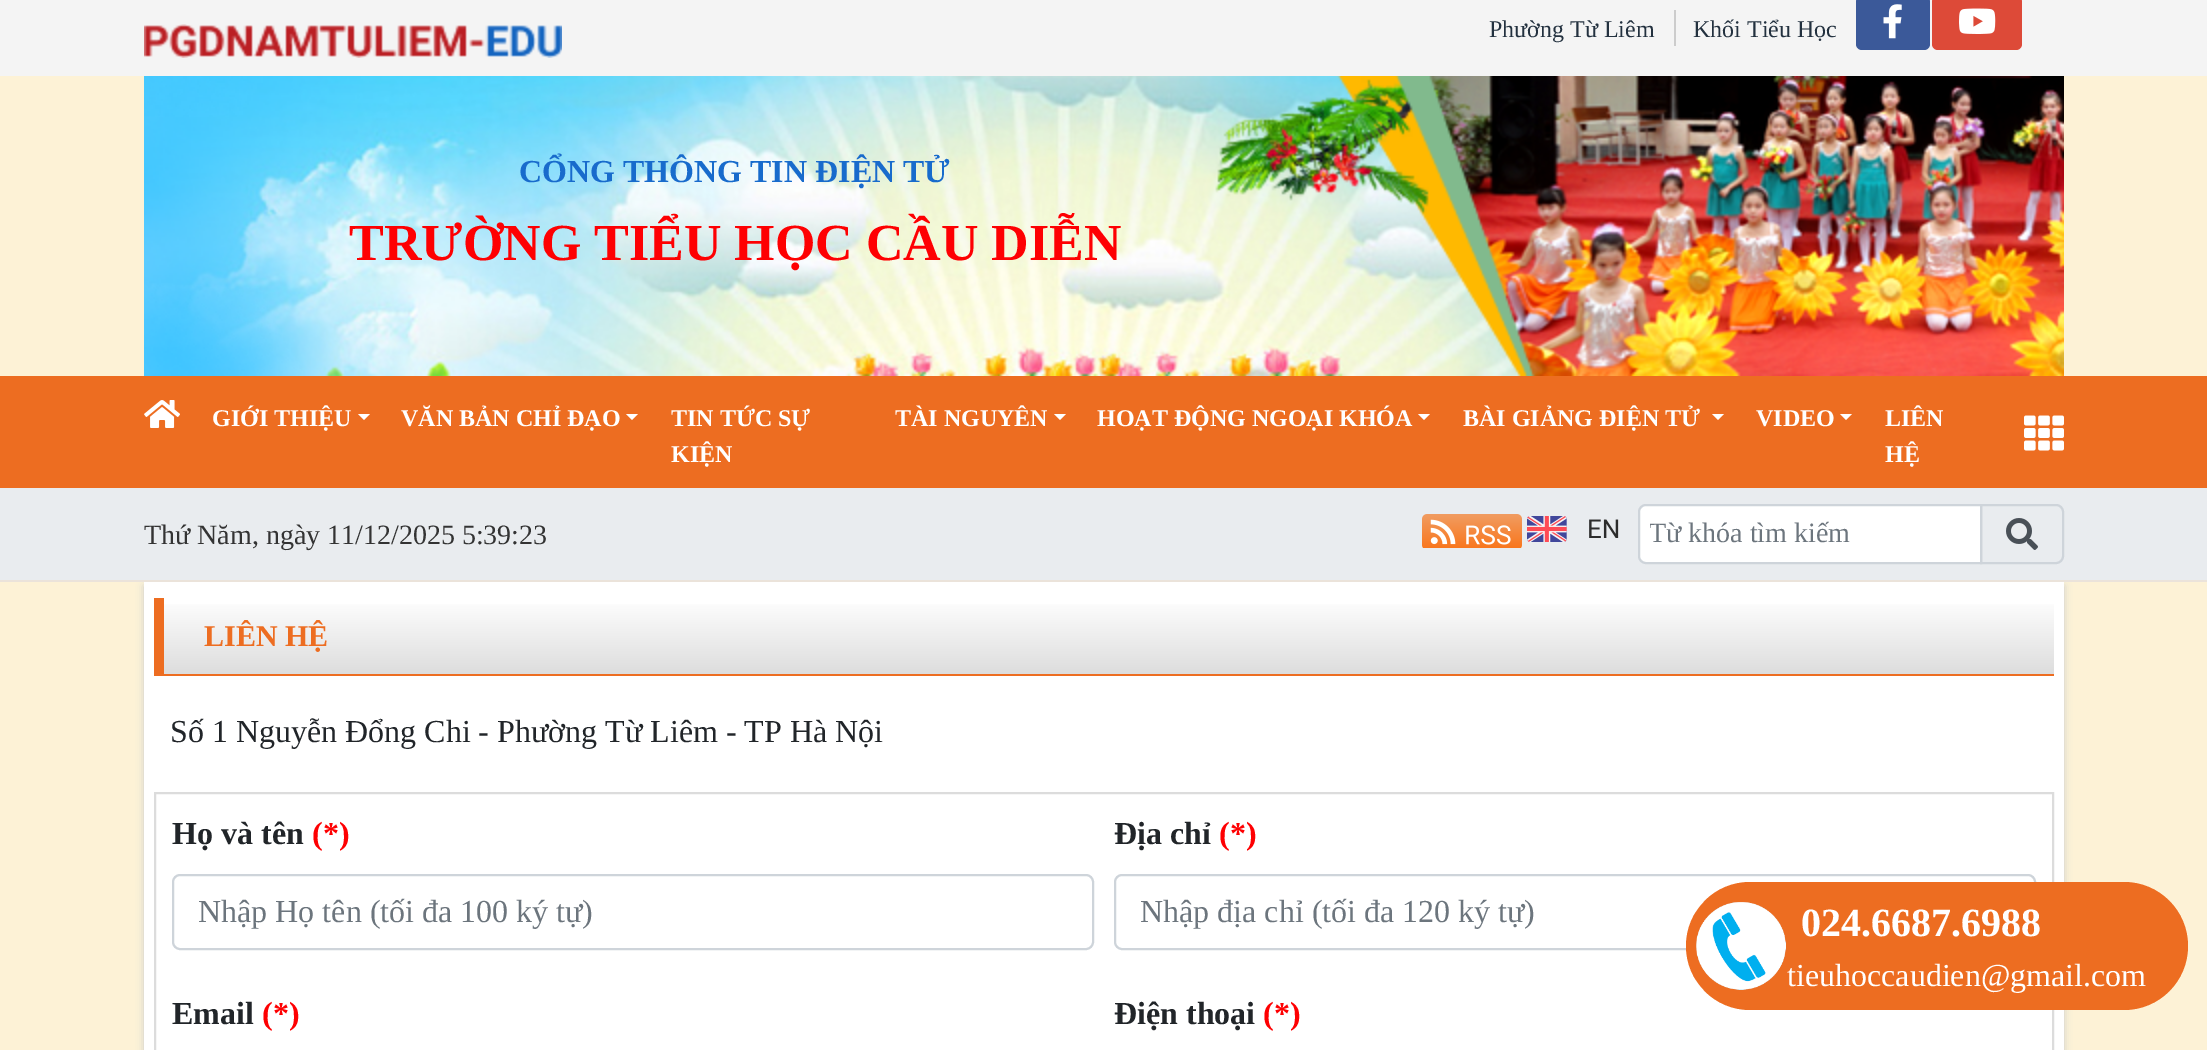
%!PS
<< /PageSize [2207 1050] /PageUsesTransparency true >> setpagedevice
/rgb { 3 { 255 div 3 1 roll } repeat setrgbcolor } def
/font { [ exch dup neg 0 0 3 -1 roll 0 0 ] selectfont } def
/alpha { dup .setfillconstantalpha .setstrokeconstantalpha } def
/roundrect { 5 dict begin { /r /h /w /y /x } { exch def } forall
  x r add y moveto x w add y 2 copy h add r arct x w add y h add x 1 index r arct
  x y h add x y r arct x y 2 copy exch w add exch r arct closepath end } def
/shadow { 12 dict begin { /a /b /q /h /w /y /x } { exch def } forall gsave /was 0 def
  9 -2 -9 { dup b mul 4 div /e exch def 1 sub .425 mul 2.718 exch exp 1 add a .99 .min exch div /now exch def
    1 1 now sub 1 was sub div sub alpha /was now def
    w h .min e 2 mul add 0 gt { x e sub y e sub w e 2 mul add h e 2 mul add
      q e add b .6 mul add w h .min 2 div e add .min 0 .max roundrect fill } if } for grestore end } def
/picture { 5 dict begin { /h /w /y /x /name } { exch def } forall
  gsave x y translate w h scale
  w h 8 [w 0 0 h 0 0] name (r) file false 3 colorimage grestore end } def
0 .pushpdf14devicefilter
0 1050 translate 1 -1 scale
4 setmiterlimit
253 242 214 rgb
0 0 2207 1050 rectfill
244 244 244 rgb
0 0 2207 76 rectfill
(img/1.rgb) 144 24 418 34 picture
204 204 204 rgb
1674 10 2 36 rectfill
59 89 153 rgb
1856 -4 74 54 6 roundrect fill
(img/2.rgb) 1883 4 19 35 picture
221 74 56 rgb
1932 -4 90 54 6 roundrect fill
(img/3.rgb) 1959 8 37 26 picture
(img/4.rgb) 144 76 1920 300 picture
237 109 33 rgb
0 376 2207 112 rectfill
(img/5.rgb) 144 400 36 28 picture
255 255 255 rgb
358 414 moveto 370 414 lineto 364 420 lineto closepath fill
626 414 moveto 638 414 lineto 632 420 lineto closepath fill
1054 414 moveto 1066 414 lineto 1060 420 lineto closepath fill
1418 414 moveto 1430 414 lineto 1424 420 lineto closepath fill
1712 414 moveto 1724 414 lineto 1718 420 lineto closepath fill
1840 414 moveto 1852 414 lineto 1846 420 lineto closepath fill
(img/6.rgb) 2024 415 40 36 picture
204 204 204 rgb
144 586 1920 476 0 4 1 shadow
233 236 239 rgb
0 488 2207 92 rectfill
235 227 218 rgb
0 580 2207 2 rectfill
(img/7.rgb) 1422 514 100 34 picture
(img/8.rgb) 1527 516 92 26 picture
206 212 218 rgb
2 setlinewidth
1981 505 moveto 2056 505 lineto 2060 505 2063 508 2063 512 curveto 2063 556 lineto 2063 560 2060 563 2056 563 curveto 1981 563 lineto closepath stroke
255 255 255 rgb
1646 505 moveto 1981 505 lineto 1981 563 lineto 1646 563 lineto 1642 563 1639 560 1639 556 curveto 1639 512 lineto 1639 508 1642 505 1646 505 curveto closepath gsave fill grestore
206 212 218 rgb
stroke
(img/9.rgb) 2006 518 32 32 picture
255 255 255 rgb
144 582 1920 468 rectfill
gsave 164 604 moveto 2054 604 lineto 2054 674 lineto 164 674 lineto closepath clip newpath
<< /ShadingType 2 /ColorSpace /DeviceRGB /Coords [1109 674 1109 598] /Extend [true true] /Function << /FunctionType 2 /Domain [0 1] /C0 [0.867 0.867 0.867] /C1 [1 1 1] /N 1 >> >> shfill grestore
237 109 33 rgb
164 674 1890 2 rectfill
154 598 10 78 rectfill
220 220 220 rgb
155 793 1898 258 rectstroke
206 212 218 rgb
173 875 920 74 7 roundrect stroke
1115 875 920 74 7 roundrect stroke
237 109 33 rgb
1686 882 502 128 64 roundrect fill
(img/10.rgb) 1696 902 90 88 picture
/LiberationSerif-Regular 24 font
35 49 63 rgb
1489 37 moveto (Phường Từ Liêm) show
1693 37 moveto (Khối Tiểu Học) show
/LiberationSerif-Bold 32 font
24 107 204 rgb
519 182 moveto (CỔNG THÔNG TIN ĐIỆN TỬ) show
/LiberationSerif-Bold 52 font
254 0 2 rgb
349 260 moveto (TRƯỜNG TIỂU HỌC CẦU DIỄN) show
/LiberationSerif-Bold 24 font
255 255 255 rgb
[
  [(GIỚI THIỆU) 212 426]
  [(VĂN BẢN CHỈ ĐẠO) 401 426]
  [(TIN TỨC SỰ) 671 426]
  [(KIỆN) 671 462]
  [(TÀI NGUYÊN) 895 426]
  [(HOẠT ĐỘNG NGOẠI KHÓA) 1097 426]
  [(BÀI GIẢNG ĐIỆN TỬ) 1463 426]
  [(VIDEO) 1756 426]
  [(LIÊN) 1885 426]
  [(HỆ) 1885 462]
] { aload pop moveto show } forall
/LiberationSerif-Regular 28 font
51 51 51 rgb
144 544 moveto (Thứ Năm, ngày 11/12/2025 5:39:23) show
gsave
1650 518 320 32 rectclip
108 117 125 rgb
1649 542 moveto (Từ khóa tìm kiếm) show
grestore
/LiberationSerif-Bold 30 font
237 109 33 rgb
204 646 moveto (LIÊN HỆ) show
/LiberationSerif-Regular 32 font
33 37 41 rgb
170 742 moveto (Số 1 Nguyễn Đổng Chi - Phường Từ Liêm - TP Hà Nội) show
/LiberationSerif-Bold 32 font
172 844 moveto (Họ và tên) show
254 0 2 rgb
312 844 moveto (\(*\)) show
/LiberationSerif-Regular 32 font
108 117 125 rgb
198 922 moveto (Nhập Họ tên \(tối đa 100 ký tự\)) show
/LiberationSerif-Bold 32 font
33 37 41 rgb
1114 844 moveto (Địa chỉ) show
254 0 2 rgb
1219 844 moveto (\(*\)) show
/LiberationSerif-Regular 32 font
108 117 125 rgb
1140 922 moveto (Nhập địa chỉ \(tối đa 120 ký tự\)) show
/LiberationSerif-Bold 32 font
33 37 41 rgb
172 1024 moveto (Email) show
254 0 2 rgb
262 1024 moveto (\(*\)) show
33 37 41 rgb
1114 1024 moveto (Điện thoại) show
254 0 2 rgb
1263 1024 moveto (\(*\)) show
/LiberationSerif-Bold 40 font
255 255 255 rgb
1801 936 moveto (024.6687.6988) show
/LiberationSerif-Regular 32 font
1787 986 moveto (tieuhoccaudien@gmail.com) show
.poppdf14devicefilter showpage
